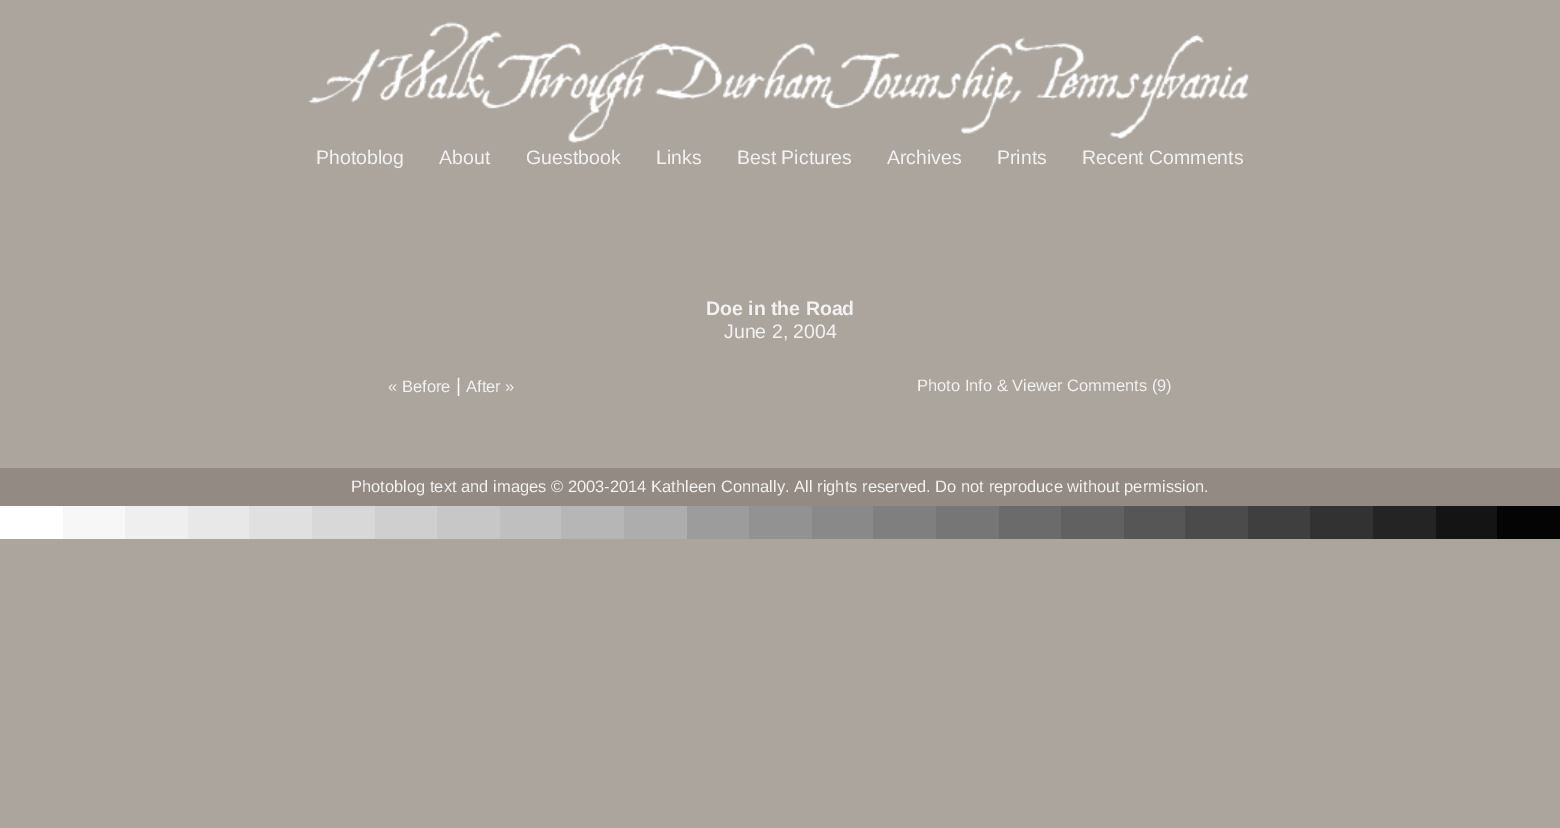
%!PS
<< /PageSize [1560 828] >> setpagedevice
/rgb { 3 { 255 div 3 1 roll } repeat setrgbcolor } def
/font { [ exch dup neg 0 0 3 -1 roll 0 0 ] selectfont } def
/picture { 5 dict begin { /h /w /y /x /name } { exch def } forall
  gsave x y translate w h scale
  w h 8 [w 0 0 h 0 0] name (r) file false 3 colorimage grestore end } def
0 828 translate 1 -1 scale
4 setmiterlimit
171 165 158 rgb
0 0 1560 828 rectfill
(img/1.rgb) 308 22 941 121 picture
[
  [0 468 1560 38 147 139 131]
  [0 506 63 33 255 255 255]
  [63 506 62 33 247 247 247]
  [125 506 63 33 239 239 239]
  [188 506 61 33 232 232 232]
  [249 506 63 33 224 224 224]
  [312 506 63 33 216 216 216]
  [375 506 62 33 207 207 207]
  [437 506 63 33 199 199 199]
  [500 506 61 33 191 191 191]
  [561 506 63 33 182 182 182]
  [624 506 63 33 173 173 173]
  [687 506 62 33 156 156 156]
  [749 506 63 33 146 146 146]
  [812 506 61 33 137 137 137]
  [873 506 63 33 127 127 127]
  [936 506 63 33 118 118 118]
  [999 506 62 33 107 107 107]
  [1061 506 63 33 97 97 97]
  [1124 506 61 33 86 86 86]
  [1185 506 63 33 75 75 75]
  [1248 506 62 33 63 63 63]
  [1310 506 63 33 50 50 50]
  [1373 506 63 33 36 36 36]
  [1436 506 61 33 20 20 20]
  [1497 506 63 33 4 4 4]
] { aload pop rgb rectfill } forall
/LiberationSans-Regular 19.5 font
243 242 241 rgb
[
  [(Photoblog) 316 164]
  [(About) 439 164]
  [(Guestbook) 526 164]
  [(Links) 656 164]
  [(Best Pictures) 737 164]
  [(Archives) 887 164]
  [(Prints) 997 164]
  [(Recent Comments) 1082 164]
] { aload pop moveto show } forall
/LiberationSans-Bold 19.5 font
706 315 moveto (Doe in the Road) show
/LiberationSans-Regular 19.5 font
724 338 moveto (June 2, 2004) show
/LiberationSans-Regular 16.5 font
388 392 moveto (« Before) show
/LiberationSans-Regular 19.5 font
255 255 255 rgb
456 392 moveto (|) show
/LiberationSans-Regular 16.5 font
243 242 241 rgb
[
  [(After ») 466 392]
  [(Photo Info & Viewer Comments \(9\)) 917 391]
  [(Photoblog text and images © 2003-2014 Kathleen Connally. All rights reserved. Do not reproduce without permission.) 351 492]
] { aload pop moveto show } forall
showpage
